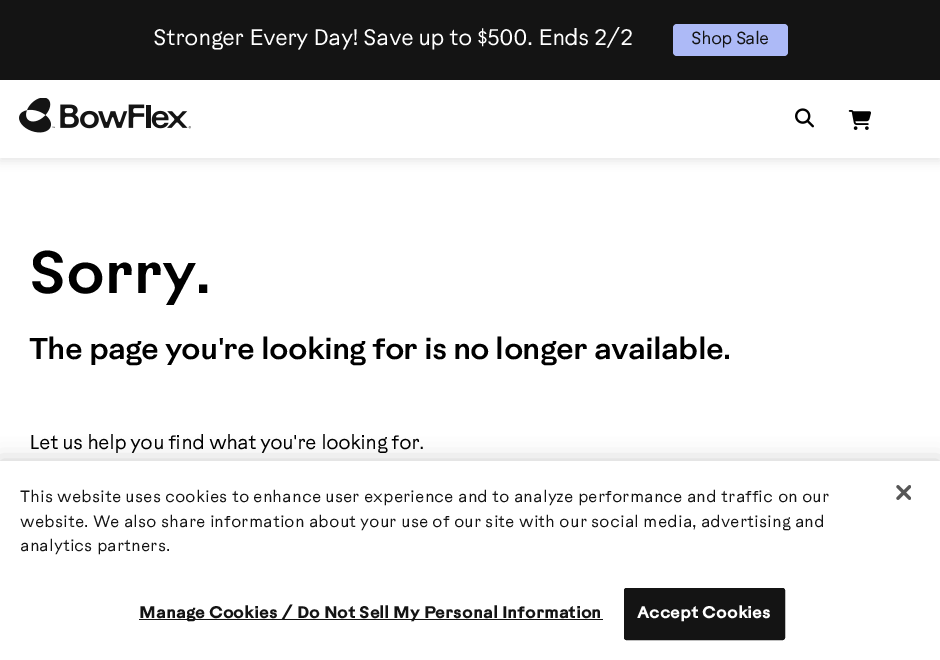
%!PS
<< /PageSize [940 660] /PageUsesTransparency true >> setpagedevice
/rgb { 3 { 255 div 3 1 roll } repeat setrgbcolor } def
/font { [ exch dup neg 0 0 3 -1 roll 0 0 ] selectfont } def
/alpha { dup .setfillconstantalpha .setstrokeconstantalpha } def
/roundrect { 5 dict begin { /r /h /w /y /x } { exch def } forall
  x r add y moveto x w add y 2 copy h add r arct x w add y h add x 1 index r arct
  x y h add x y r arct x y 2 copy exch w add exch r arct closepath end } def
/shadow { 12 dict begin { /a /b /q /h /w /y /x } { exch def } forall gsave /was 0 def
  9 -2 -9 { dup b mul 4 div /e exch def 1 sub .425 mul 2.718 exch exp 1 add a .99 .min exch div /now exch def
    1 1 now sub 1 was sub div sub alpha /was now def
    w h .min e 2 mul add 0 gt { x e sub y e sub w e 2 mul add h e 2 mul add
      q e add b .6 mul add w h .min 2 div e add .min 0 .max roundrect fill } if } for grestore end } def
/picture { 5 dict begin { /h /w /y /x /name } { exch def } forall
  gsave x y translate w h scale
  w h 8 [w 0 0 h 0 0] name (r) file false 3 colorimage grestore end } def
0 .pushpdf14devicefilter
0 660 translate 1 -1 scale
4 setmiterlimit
255 255 255 rgb
0 0 940 660 rectfill
gsave
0 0 moveto 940 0 lineto 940 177 lineto 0 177 lineto closepath 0 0 moveto 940 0 lineto 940 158 lineto 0 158 lineto closepath eoclip newpath
0 0 0 rgb
0 4 940 157 0 5 0.1 shadow
grestore
20 20 20 rgb
0 0 940 80 rectfill
173 186 247 rgb
673 24 115 32 4 roundrect fill
(img/1.rgb) 19 98 172 35 picture
(img/2.rgb) 795 108 19 20 picture
(img/3.rgb) 848 110 23 20 picture
0 0 0 rgb
0 461 940 199 0 11 0.2 shadow
255 255 255 rgb
0 461 940 199 rectfill
(img/4.rgb) 896 485 15 15 picture
17 17 17 rgb
139 619 464 1 rectfill
20 20 20 rgb
624.5 588.5 160 51 2 roundrect gsave fill grestore
stroke
/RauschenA-Regular 22.5 font
255 255 255 rgb
153 45 moveto -0.8 0 (Stronger Every Day! Save up to $500. Ends 2/2) ashow
/RauschenA-Regular 17.5 font
20 20 20 rgb
691 44 moveto -0.8 0 (Shop Sale) ashow
/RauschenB-Medium 60 font
0 0 0 rgb
29 293 moveto -0.8 0 (Sorry.) ashow
/RauschenA-Medium 30 font
29 359 moveto -0.8 0 (The page you're looking for is no longer available.) ashow
/RauschenA-Regular 20 font
29 449 moveto -0.8 0 (Let us help you find what you're looking for.) ashow
/RauschenA-Regular 16.25 font
20 20 20 rgb
[
  [(This website uses cookies to enhance user experience and to analyze performance and traffic on our) 20 502]
  [(website. We also share information about your use of our site with our social media, advertising and) 20 527]
  [(analytics partners.) 20 551]
] { aload pop moveto show } forall
/RauschenA-Bold 16.25 font
139 618 moveto 0.15 0 (Manage Cookies / Do Not Sell My Personal Information) ashow
255 255 255 rgb
637 618 moveto 0.15 0 (Accept Cookies) ashow
.poppdf14devicefilter showpage
